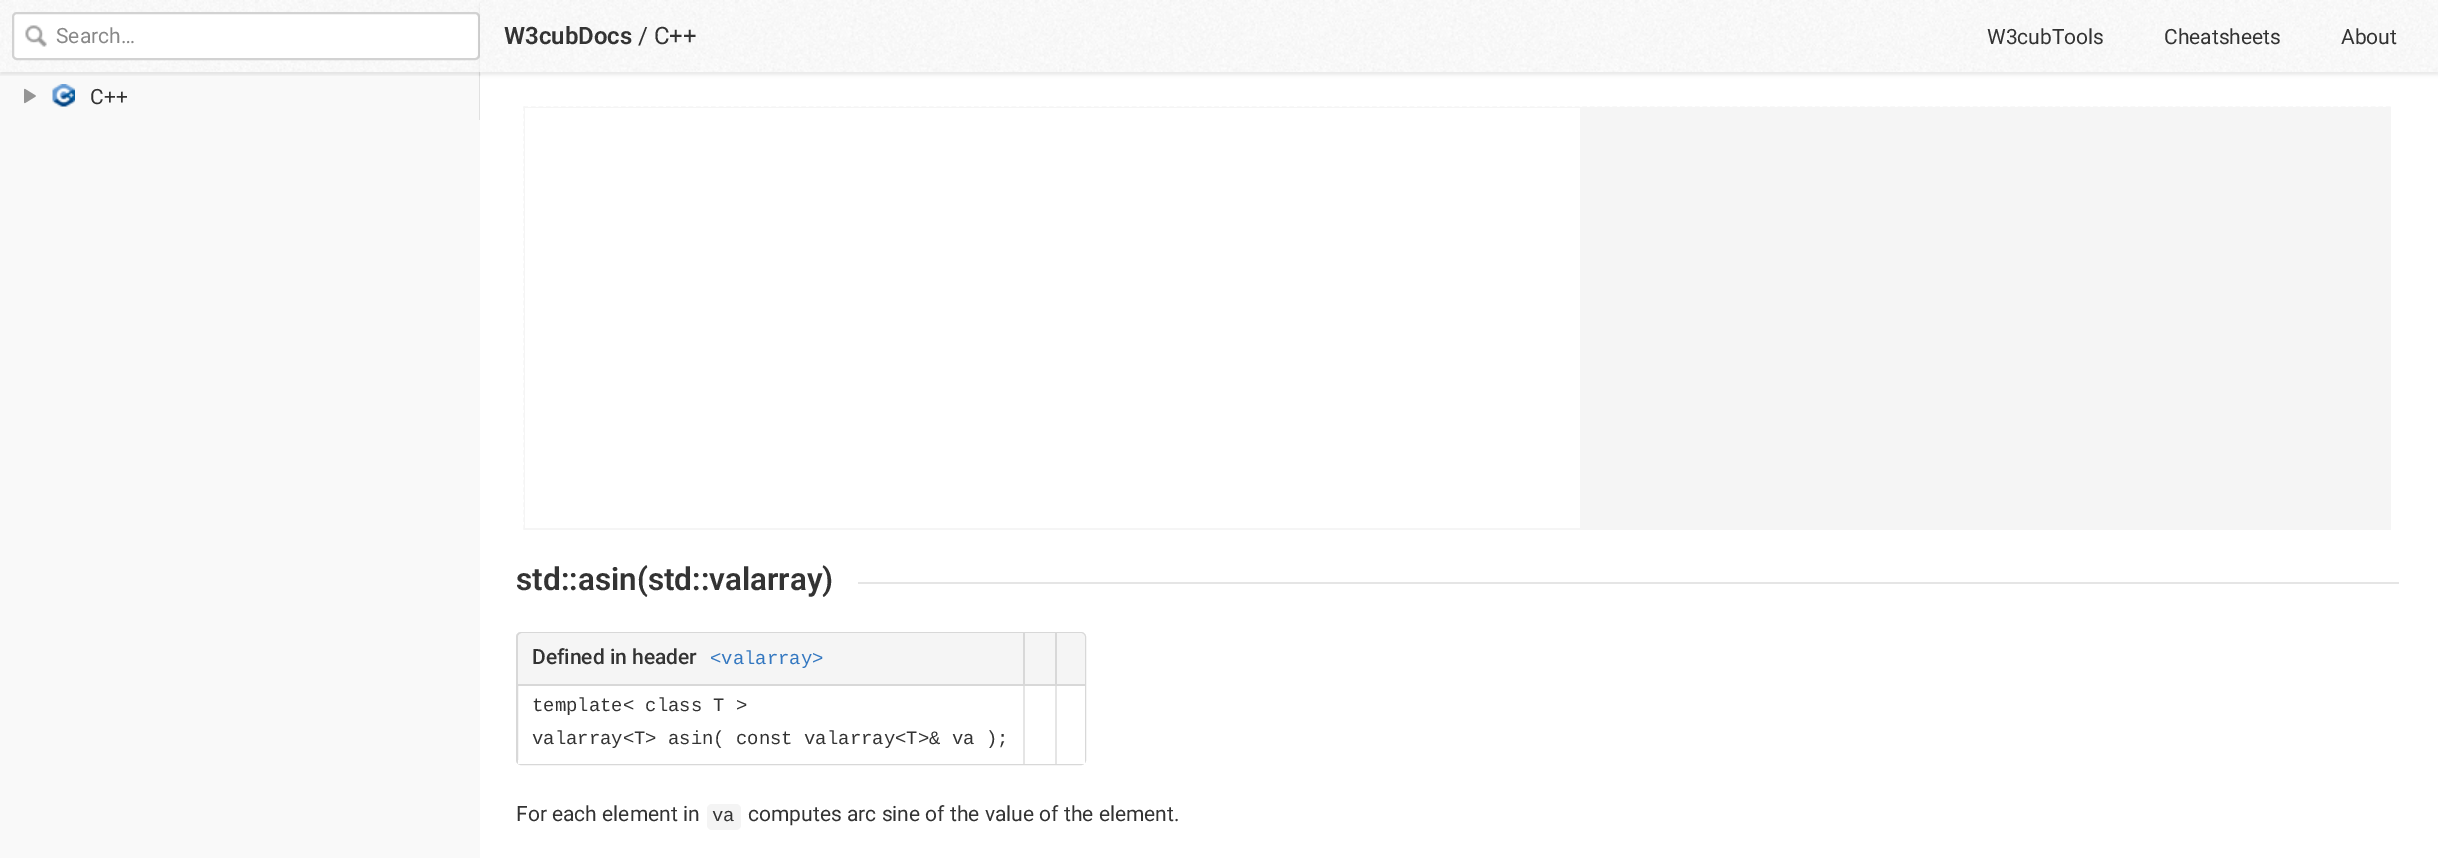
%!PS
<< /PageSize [2438 858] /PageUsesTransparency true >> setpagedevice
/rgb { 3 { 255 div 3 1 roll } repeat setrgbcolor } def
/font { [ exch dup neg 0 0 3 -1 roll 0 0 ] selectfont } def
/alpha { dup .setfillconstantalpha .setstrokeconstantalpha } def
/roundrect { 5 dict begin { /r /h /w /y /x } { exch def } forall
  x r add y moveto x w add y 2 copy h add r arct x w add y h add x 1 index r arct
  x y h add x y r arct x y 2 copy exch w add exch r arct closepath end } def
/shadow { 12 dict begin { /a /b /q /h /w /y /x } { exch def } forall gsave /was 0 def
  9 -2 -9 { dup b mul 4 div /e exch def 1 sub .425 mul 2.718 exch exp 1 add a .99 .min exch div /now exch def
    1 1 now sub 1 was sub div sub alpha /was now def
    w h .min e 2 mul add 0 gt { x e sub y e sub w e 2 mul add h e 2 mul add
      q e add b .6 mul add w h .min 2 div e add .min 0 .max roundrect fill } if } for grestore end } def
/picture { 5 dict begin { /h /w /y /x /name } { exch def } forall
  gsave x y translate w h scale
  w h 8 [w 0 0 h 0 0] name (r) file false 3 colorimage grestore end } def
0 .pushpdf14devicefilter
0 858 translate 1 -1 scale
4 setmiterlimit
255 255 255 rgb
0 0 2438 858 rectfill
[
  [0 120 480 738 249 249 249]
  [0 72 479 48 249 249 249]
  [479 72 1 48 225 225 225]
] { aload pop rgb rectfill } forall
gsave
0 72 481 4 rectclip
0 0 0 rgb
0 3 480 72 0 1.5 0.07 shadow
grestore
(img/1.rgb) 0 0 480 72 picture
255 255 255 rgb
13 13 466 46 4 roundrect gsave fill grestore
210 210 210 rgb
2 setlinewidth
stroke
(img/2.rgb) 25 25 22 22 picture
(img/3.rgb) 24 88 12 16 picture
(img/4.rgb) 52 84 23 23 picture
0 0 0 rgb
480 3 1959 72 0 1.5 0.07 shadow
255 255 255 rgb
480 1 1958 71 rectfill
(img/5.rgb) 480 0 1958 72 picture
245 245 245 rgb
524 107 1867 423 rectfill
1.5 setlinewidth
[4.5 3.01] 0 setdash
523.5 107 moveto 2391 107 lineto stroke
523.5 529 moveto 2391 529 lineto stroke
[4.5 2.97] 0 setdash
524 106.5 moveto 524 529.5 lineto stroke
255 255 255 rgb
525 108 1055 420 rectfill
229 229 229 rgb
858 582 1541 2 rectfill
216 216 216 rgb
2 setlinewidth
[] 0 setdash
517 633 568 131 4 roundrect stroke
245 245 245 rgb
523 633 moveto 1023 633 lineto 1023 686 lineto 518 686 lineto 518 638 lineto 518 635 520 633 523 633 curveto closepath fill
[
  [518 684 537 2 216 216 216]
  [1025 633 30 51 245 245 245]
  [1023 633 2 53 216 216 216]
] { aload pop rgb rectfill } forall
245 245 245 rgb
1055 633 moveto 1080 633 lineto 1083 633 1085 635 1085 638 curveto 1085 686 lineto 1055 686 lineto closepath fill
[
  [1055 684 30 2 216 216 216]
  [1055 633 2 53 216 216 216]
  [518 760 505 4 255 255 255]
  [1025 763 30 1 255 255 255]
  [1023 686 2 78 229 229 229]
  [1057 686 28 78 255 255 255]
  [1055 686 2 78 229 229 229]
] { aload pop rgb rectfill } forall
244 244 244 rgb
707 804 34 26 5 roundrect fill
/Roboto-Regular 21 font
136 136 136 rgb
56 43 moveto (Search…) show
51 51 51 rgb
90 104 moveto (C++) show
/Roboto-SemiBold 24 font
504 44 moveto (W3cubDocs) show
/Roboto-Regular 24 font
638 44 moveto (/ C++) show
/Roboto-Regular 21 font
[
  [(W3cubTools) 1987 44]
  [(Cheatsheets) 2164 44]
  [(About) 2341 44]
] { aload pop moveto show } forall
/Roboto-SemiBold 31.5 font
516 590 moveto (std::asin\(std::valarray\)) show
/Roboto-Medium 21 font
532 664 moveto (Defined in header) show
/LiberationMono-Regular 18.9 font
51 119 192 rgb
710 664 moveto (<valarray>) show
51 51 51 rgb
532 711 moveto (template< class T >) show
532 744 moveto (valarray<T> asin\( const valarray<T>& va \);) show
/Roboto-Regular 21 font
516 821 moveto (For each element in) show
/LiberationMono-Regular 18.9 font
712 821 moveto (va) show
/Roboto-Regular 21 font
748 821 moveto (computes arc sine of the value of the element.) show
.poppdf14devicefilter showpage
